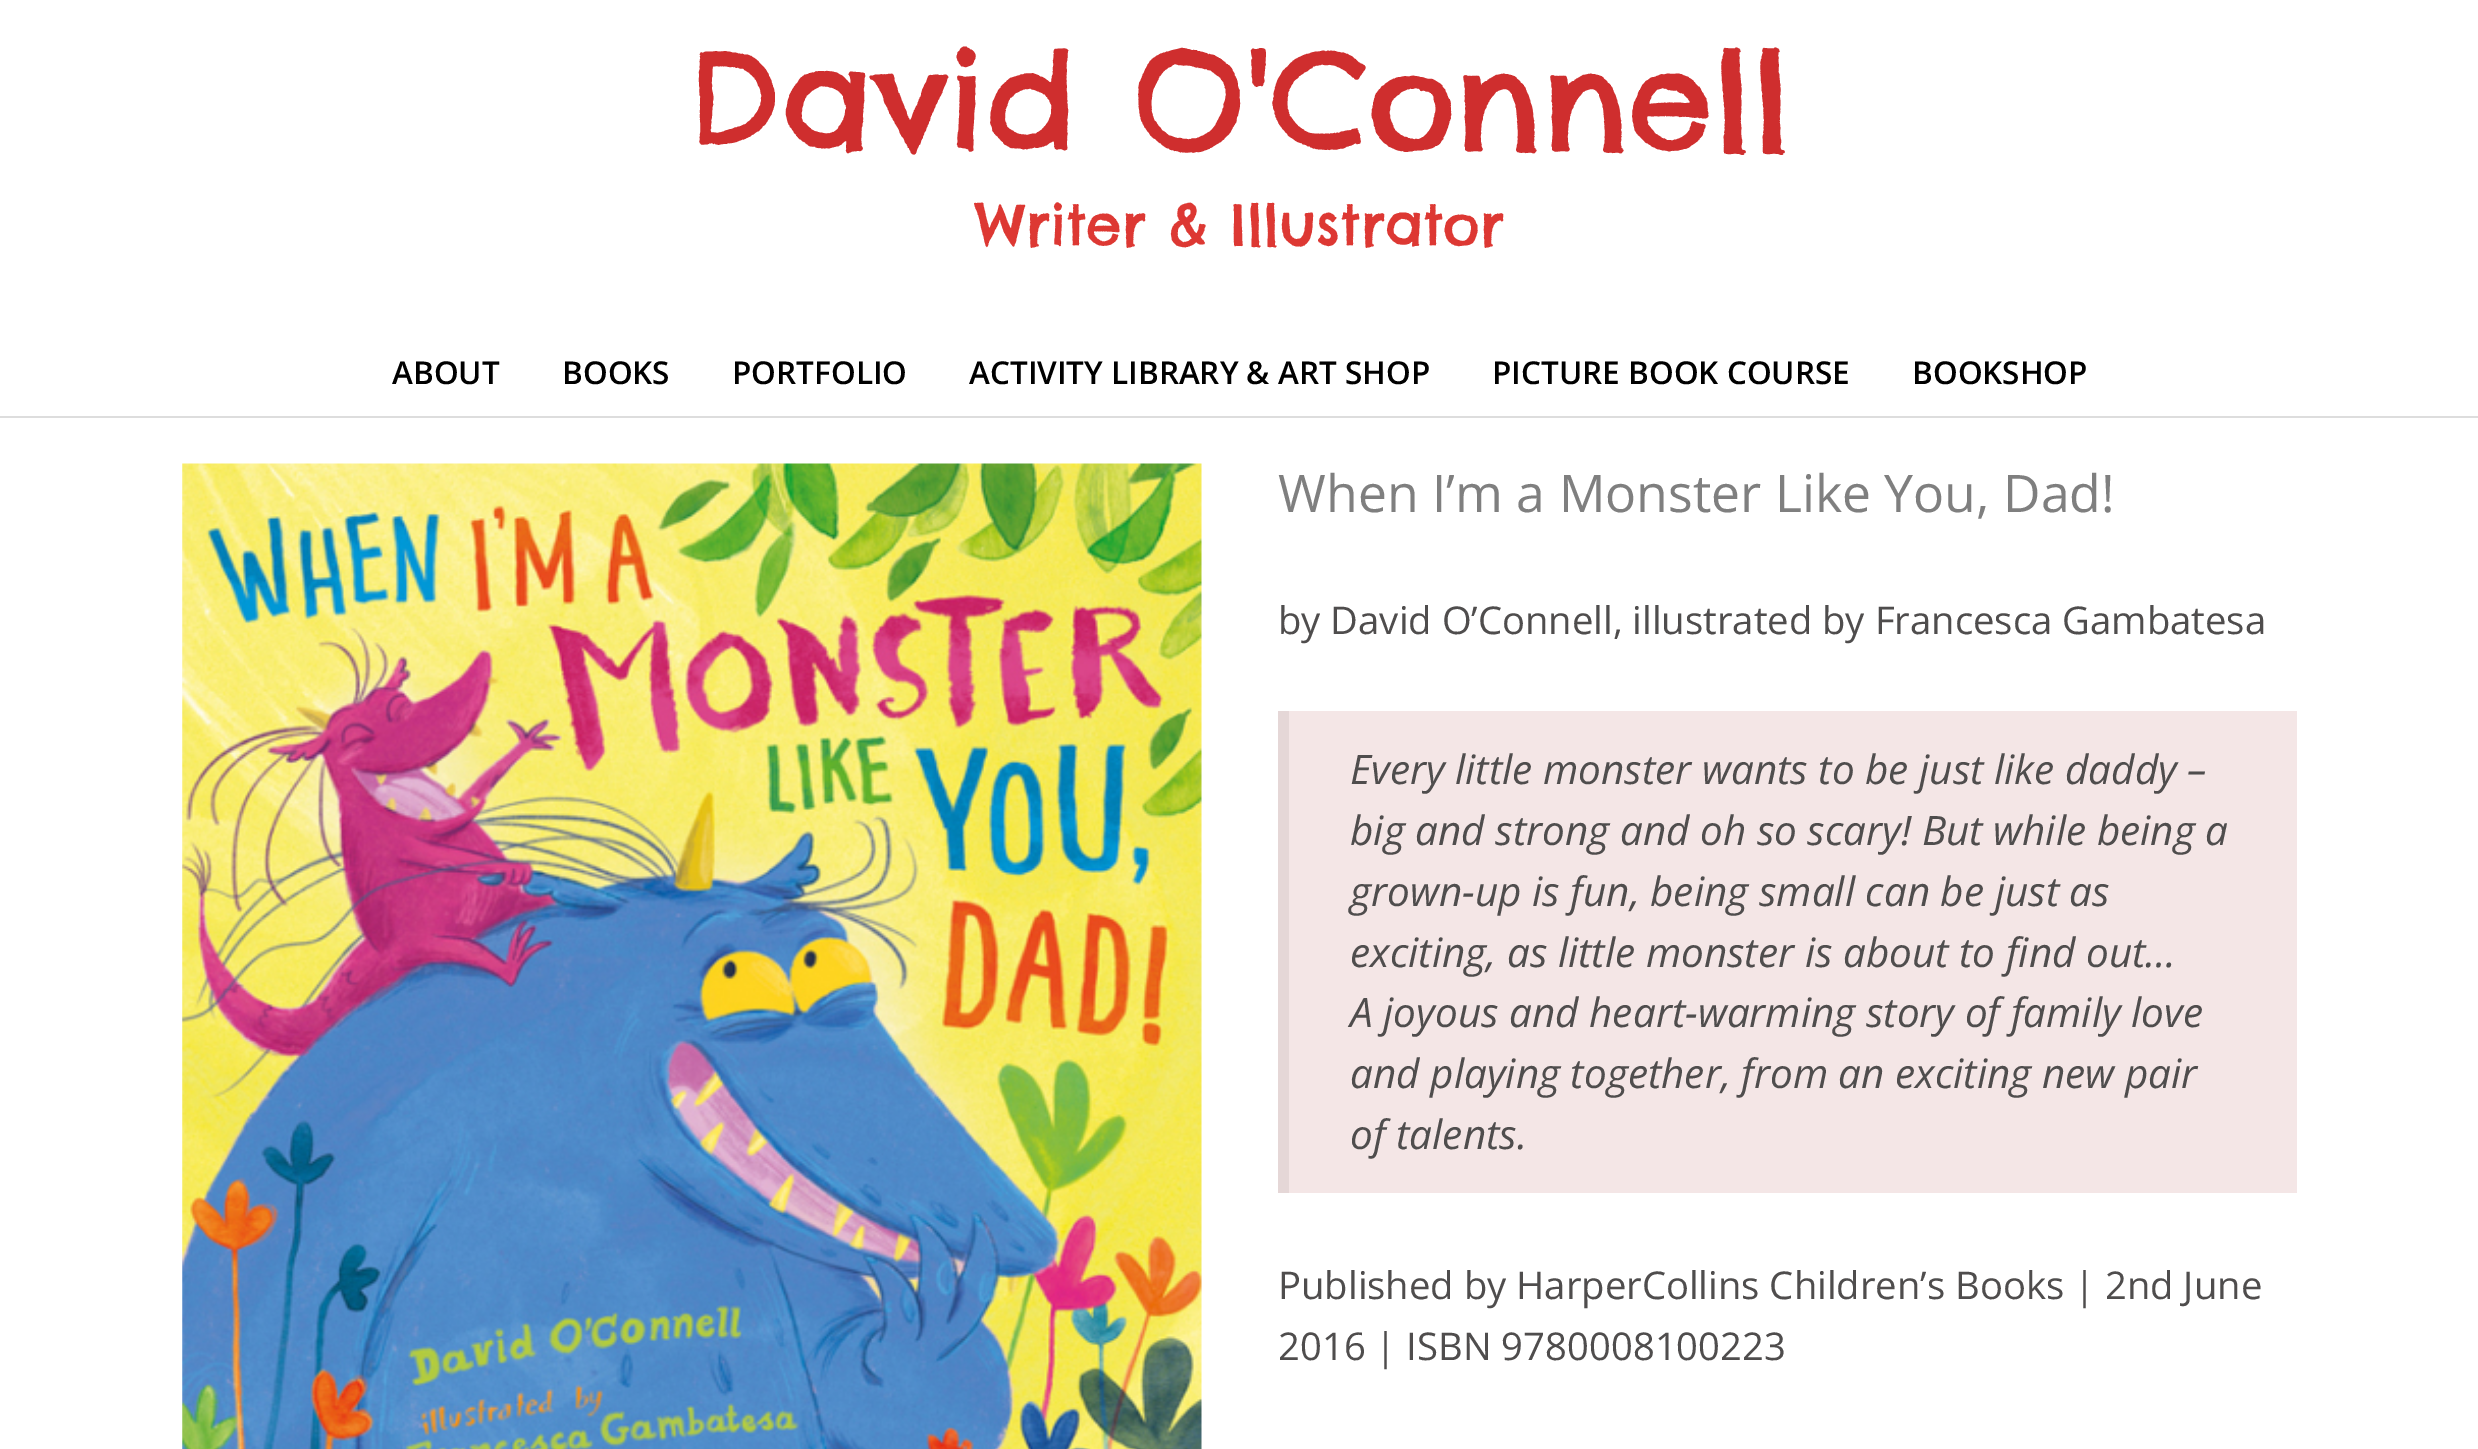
%!PS
<< /PageSize [2478 1449] >> setpagedevice
/rgb { 3 { 255 div 3 1 roll } repeat setrgbcolor } def
/font { [ exch dup neg 0 0 3 -1 roll 0 0 ] selectfont } def
/picture { 5 dict begin { /h /w /y /x /name } { exch def } forall
  gsave x y translate w h scale
  w h 8 [w 0 0 h 0 0] name (r) file false 3 colorimage grestore end } def
0 1449 translate 1 -1 scale
4 setmiterlimit
255 255 255 rgb
0 0 2478 1449 rectfill
221 221 221 rgb
0 416 2478 2 rectfill
(img/1.rgb) 182 463 1020 986 picture
244 230 230 rgb
1289 711 1008 482 rectfill
229 215 215 rgb
1278 711 11 482 rectfill
/ChelseaMarket-Regular 135 font
207 46 46 rgb
688 149 moveto (David O'Connell) show
/ChelseaMarket-Regular 56.25 font
221 56 51 rgb
975 245 moveto (Writer & Illustrator) show
/OpenSans-SemiBold 31.5 font
0 0 0 rgb
[
  [(ABOUT) 392 384]
  [(BOOKS) 562 384]
  [(PORTFOLIO) 732 384]
  [(ACTIVITY LIBRARY & ART SHOP) 969 384]
  [(PICTURE BOOK COURSE) 1492 384]
  [(BOOKSHOP) 1912 384]
] { aload pop moveto show } forall
/OpenSans-Regular 51.75 font
127 127 127 rgb
1278 512 moveto (When I’m a Monster Like You, Dad!) show
/OpenSans-Regular 38.25 font
79 77 77 rgb
1278 634 moveto (by David O’Connell, illustrated by Francesca Gambatesa) show
/OpenSans-Italic 40.5 font
[
  [(Every little monster wants to be just like daddy –) 1350 784]
  [(big and strong and oh so scary! But while being a) 1350 845]
  [(grown-up is fun, being small can be just as) 1350 906]
  [(exciting, as little monster is about to find out…) 1350 967]
  [(A joyous and heart-warming story of family love) 1350 1027]
  [(and playing together, from an exciting new pair) 1350 1088]
  [(of talents.) 1350 1149]
] { aload pop moveto show } forall
/OpenSans-Regular 38.25 font
1278 1299 moveto (Published by HarperCollins Children’s Books | 2nd June) show
1278 1360 moveto (2016 | ISBN 9780008100223) show
showpage
